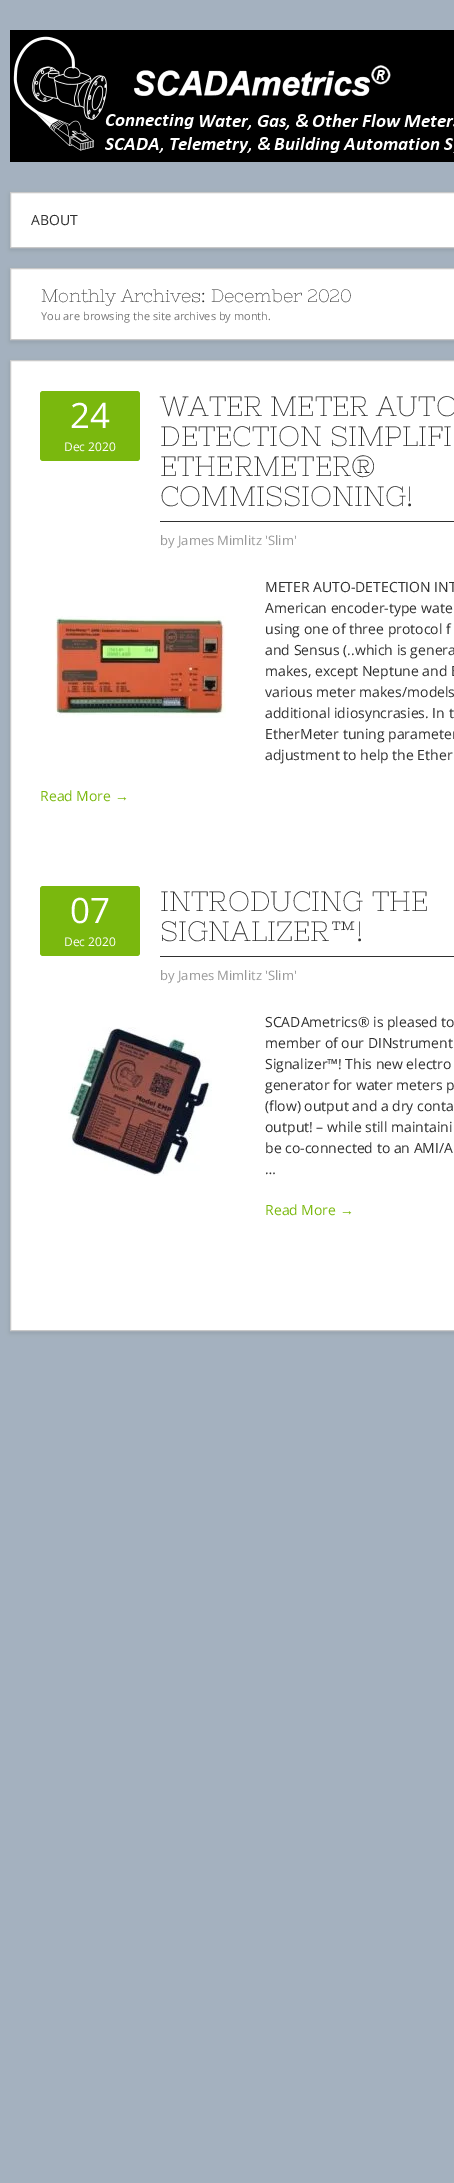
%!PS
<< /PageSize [454 2183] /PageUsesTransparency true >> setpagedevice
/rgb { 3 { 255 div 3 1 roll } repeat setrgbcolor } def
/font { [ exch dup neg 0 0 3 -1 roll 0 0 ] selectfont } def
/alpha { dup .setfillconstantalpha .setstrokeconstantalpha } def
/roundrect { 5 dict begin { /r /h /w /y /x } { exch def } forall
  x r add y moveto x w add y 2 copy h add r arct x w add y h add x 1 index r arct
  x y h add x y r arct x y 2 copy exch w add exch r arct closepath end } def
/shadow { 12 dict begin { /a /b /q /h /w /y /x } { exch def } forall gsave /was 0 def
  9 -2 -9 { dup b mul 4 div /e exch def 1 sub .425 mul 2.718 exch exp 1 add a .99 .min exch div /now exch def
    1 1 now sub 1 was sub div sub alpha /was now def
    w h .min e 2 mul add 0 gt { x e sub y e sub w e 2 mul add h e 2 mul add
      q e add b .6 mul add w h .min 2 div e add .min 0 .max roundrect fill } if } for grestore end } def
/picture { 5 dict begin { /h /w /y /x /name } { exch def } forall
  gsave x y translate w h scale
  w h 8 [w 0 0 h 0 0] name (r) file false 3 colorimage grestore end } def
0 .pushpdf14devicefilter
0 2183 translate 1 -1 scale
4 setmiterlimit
164 177 191 rgb
0 0 454 2183 rectfill
(img/1.rgb) 10 30 444 132 picture
50 50 50 rgb
10 194 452 56 0 2.5 0.15 shadow
255 255 255 rgb
10.5 192.5 moveto 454.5 192.5 lineto 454.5 247.5 lineto 10.5 247.5 lineto closepath gsave fill grestore
200 200 200 rgb
stroke
50 50 50 rgb
10 270 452 72 0 2.5 0.15 shadow
255 255 255 rgb
10.5 268.5 moveto 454.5 268.5 lineto 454.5 339.5 lineto 10.5 339.5 lineto closepath gsave fill grestore
200 200 200 rgb
stroke
50 50 50 rgb
10 362 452 971 0 2.5 0.15 shadow
255 255 255 rgb
10.5 360.5 moveto 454.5 360.5 lineto 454.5 1330.5 lineto 10.5 1330.5 lineto closepath gsave fill grestore
200 200 200 rgb
stroke
122 184 14 rgb
40 391 100 70 3 roundrect fill
47 47 47 rgb
160 521 294 1 rectfill
(img/2.rgb) 55 616 171 102 picture
122 184 14 rgb
40 886 100 70 3 roundrect fill
47 47 47 rgb
160 956 294 1 rectfill
(img/3.rgb) 68 1027 144 149 picture
/OpenSans-Regular 14 font
31 225 moveto (ABOUT) show
/NixieOne-Regular 18 font
41 302 moveto (Monthly Archives: December 2020) show
/OpenSans-Regular 11 font
119 119 119 rgb
41 320 moveto (You are browsing the site archives by month.) show
/OpenSans-Regular 35 font
255 255 255 rgb
70 428 moveto (24) show
/OpenSans-Regular 12 font
64 451 moveto (Dec 2020) show
/NixieOne-Regular 28 font
47 47 47 rgb
[
  [(WATER METER AUTO) 160 416]
  [(DETECTION SIMPLIFI) 160 446]
  [(ETHERMETER®) 160 476]
  [(COMMISSIONING!) 160 506]
] { aload pop moveto show } forall
/OpenSans-Regular 13 font
153 153 153 rgb
160 545 moveto (by James Mimlitz 'Slim') show
/OpenSans-Regular 14 font
47 47 47 rgb
[
  [(METER AUTO-DETECTION INT) 265 592]
  [(American encoder-type wate) 265 613]
  [(using one of three protocol f) 265 634]
  [(and Sensus \(..which is genera) 265 655]
  [(makes, except Neptune and E) 265 676]
  [(various meter makes/models) 265 697]
  [(additional idiosyncrasies. In t) 265 718]
  [(EtherMeter tuning parameter) 265 739]
  [(adjustment to help the Ether) 265 760]
] { aload pop moveto show } forall
122 184 14 rgb
40 801 moveto (Read More) show
/LiberationSans-Regular 14 font
115 801 moveto (→) show
/OpenSans-Regular 35 font
255 255 255 rgb
70 923 moveto (07) show
/OpenSans-Regular 12 font
64 946 moveto (Dec 2020) show
/NixieOne-Regular 28 font
47 47 47 rgb
160 911 moveto (INTRODUCING THE) show
160 941 moveto (SIGNALIZER™!) show
/OpenSans-Regular 13 font
153 153 153 rgb
160 980 moveto (by James Mimlitz 'Slim') show
/OpenSans-Regular 14 font
47 47 47 rgb
[
  [(SCADAmetrics® is pleased to) 265 1027]
  [(member of our DINstrument) 265 1048]
  [(Signalizer™! This new electro) 265 1069]
  [(generator for water meters p) 265 1090]
  [(\(flow\) output and a dry conta) 265 1111]
  [(output! – while still maintaini) 265 1132]
  [(be co-connected to an AMI/A) 265 1153]
  [(…) 265 1174]
] { aload pop moveto show } forall
122 184 14 rgb
265 1215 moveto (Read More) show
/LiberationSans-Regular 14 font
340 1215 moveto (→) show
.poppdf14devicefilter showpage
